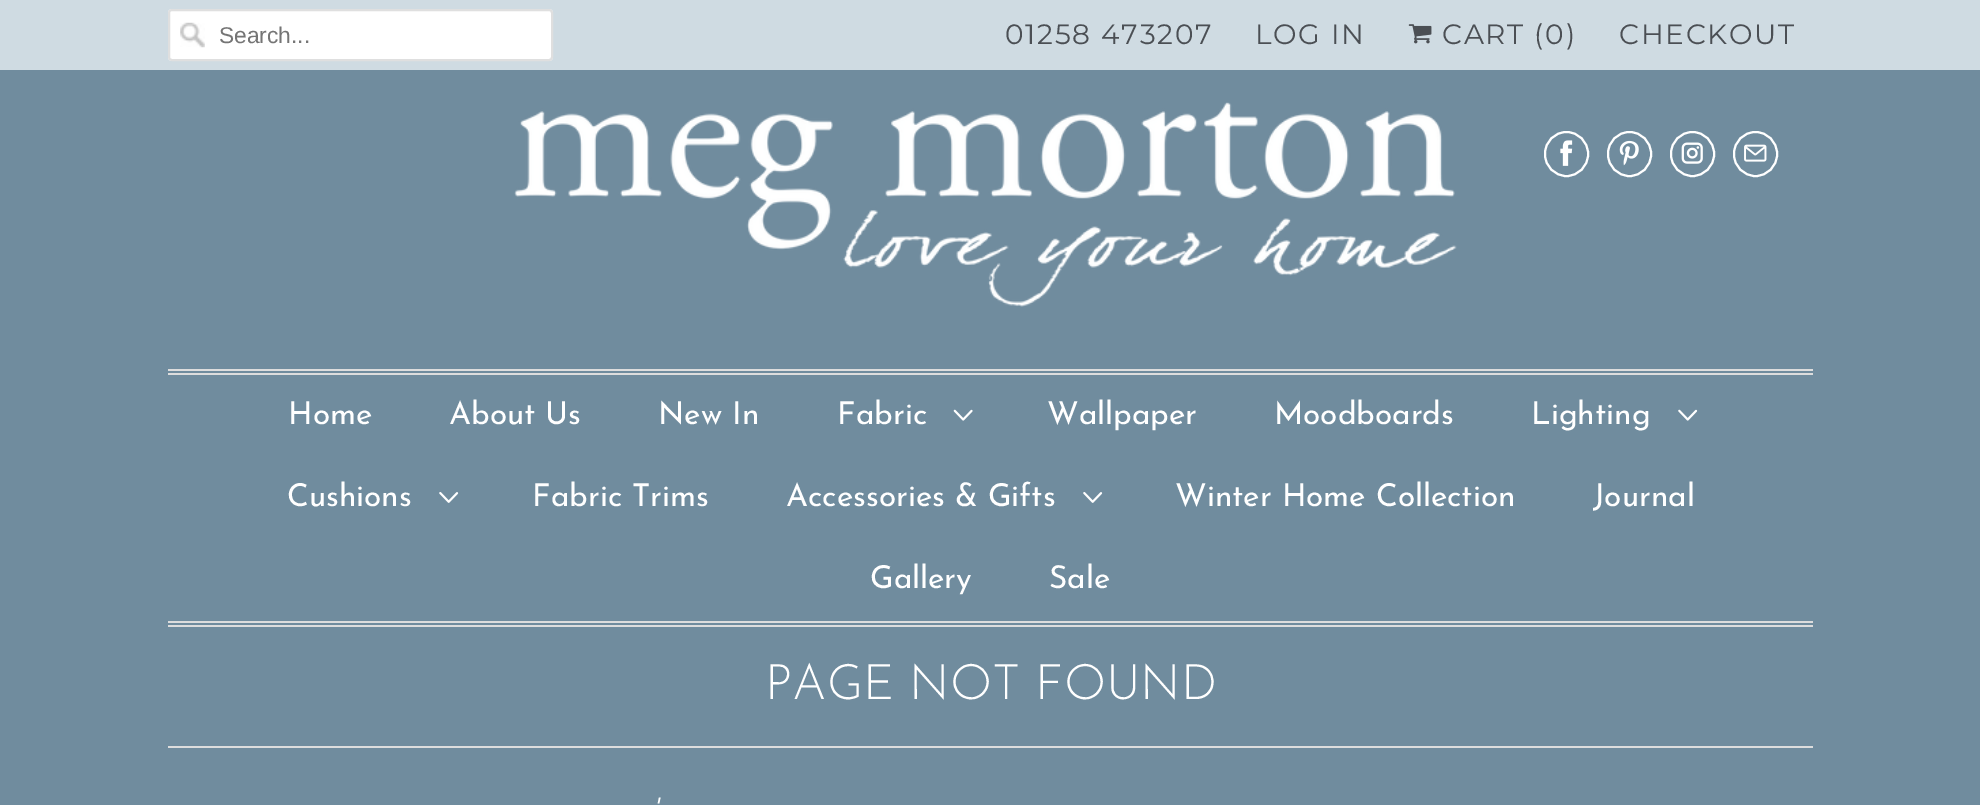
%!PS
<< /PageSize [1980 805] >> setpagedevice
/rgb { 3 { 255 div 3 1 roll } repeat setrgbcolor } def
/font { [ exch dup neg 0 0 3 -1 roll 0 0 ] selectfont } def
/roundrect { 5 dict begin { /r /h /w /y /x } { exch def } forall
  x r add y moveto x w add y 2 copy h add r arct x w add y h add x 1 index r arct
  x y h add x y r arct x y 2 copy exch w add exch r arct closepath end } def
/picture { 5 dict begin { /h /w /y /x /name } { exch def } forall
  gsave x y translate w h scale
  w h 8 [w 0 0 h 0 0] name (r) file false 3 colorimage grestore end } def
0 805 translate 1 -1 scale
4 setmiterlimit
112 140 158 rgb
0 0 1980 805 rectfill
207 219 226 rgb
0 0 1980 70 rectfill
255 255 255 rgb
168 9 385 52 4 roundrect fill
(img/1.rgb) 180 22 25 26 picture
223 223 223 rgb
2 setlinewidth
169 10 383 50 3 roundrect stroke
(img/2.rgb) 1408 24 24 20 picture
(img/3.rgb) 514 102 943 205 picture
255 255 255 rgb
1545 132 43 44 21.5 roundrect stroke
(img/4.rgb) 1560 140 13 26 picture
1608 132 43 44 21.5 roundrect stroke
(img/5.rgb) 1619 140 20 26 picture
1671 132 43 44 21.5 roundrect stroke
(img/6.rgb) 1681 142 22 22 picture
1734 132 43 44 21.5 roundrect stroke
(img/7.rgb) 1744 144 23 18 picture
[
  [168 369 1645 2 221 221 221]
  [168 373 1645 2 221 221 221]
  [168 621 1645 2 221 221 221]
  [168 625 1645 2 221 221 221]
] { aload pop rgb rectfill } forall
(img/8.rgb) 953 409 20 12 picture
(img/9.rgb) 1678 409 20 12 picture
(img/10.rgb) 439 492 20 11 picture
(img/10.rgb) 1083 492 20 11 picture
168 746 1645 2 rectfill
/LiberationSans-Regular 22.75 font
117 117 117 rgb
219 43 moveto (Search...) show
/Montserrat-Regular 28 font
75 79 84 rgb
1005 44 moveto 1.75 0 (01258 473207) ashow
1255 44 moveto 1.75 0 (LOG IN) ashow
1442 44 moveto 1.75 0 (CART \(0\)) ashow
1619 44 moveto 1.75 0 (CHECKOUT) ashow
/JosefinSans-Regular 31.5 font
255 255 255 rgb
[
  [(Home) 288 424]
  [(About Us) 449 424]
  [(New In) 658 424]
  [(Fabric) 837 424]
  [(Wallpaper) 1047 424]
  [(Moodboards) 1274 424]
  [(Lighting) 1531 424]
  [(Cushions) 287 506]
  [(Fabric Trims) 532 506]
  [(Accessories & Gifts) 786 506]
  [(Winter Home Collection) 1175 506]
  [(Journal) 1593 506]
  [(Gallery) 870 588]
  [(Sale) 1049 588]
] { aload pop moveto show } forall
/JosefinSans-Light 49 font
765 699 moveto (PAGE NOT FOUND) show
/Raleway-Italic 31.5 font
654 820 moveto (') show
showpage
